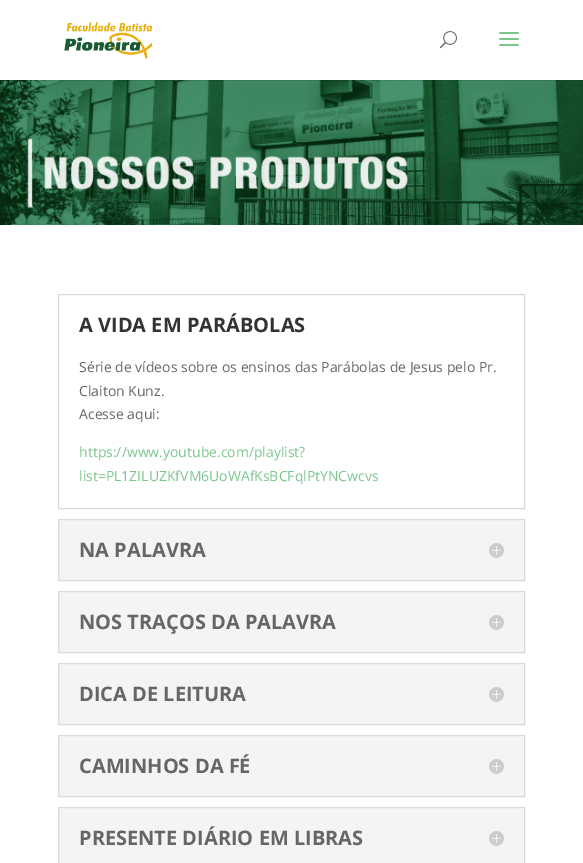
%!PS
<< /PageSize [583 863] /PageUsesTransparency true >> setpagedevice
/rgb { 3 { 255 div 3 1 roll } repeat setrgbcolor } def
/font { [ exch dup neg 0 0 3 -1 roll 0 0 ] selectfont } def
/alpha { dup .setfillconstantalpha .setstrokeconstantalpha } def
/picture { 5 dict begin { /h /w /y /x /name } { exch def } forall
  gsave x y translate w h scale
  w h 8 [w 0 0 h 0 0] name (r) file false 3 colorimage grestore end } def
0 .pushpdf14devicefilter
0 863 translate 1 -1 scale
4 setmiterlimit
255 255 255 rgb
0 0 583 863 rectfill
(img/4.rgb) 0 80 583 145 picture
0.1 alpha
0 0 0 rgb
0 80 583 1 rectfill
1 alpha
(img/1.rgb) 64 22 89 37 picture
(img/2.rgb) 440 31 17 18 picture
(img/3.rgb) 499 32 20 14 picture
217 217 217 rgb
58.5 294.5 466 214 rectstroke
244 244 244 rgb
58.5 519.5 moveto 524.5 519.5 lineto 524.5 580.5 lineto 58.5 580.5 lineto closepath gsave fill grestore
217 217 217 rgb
stroke
(img/5.rgb) 489 543 15 15 picture
244 244 244 rgb
58.5 591.5 moveto 524.5 591.5 lineto 524.5 652.5 lineto 58.5 652.5 lineto closepath gsave fill grestore
217 217 217 rgb
stroke
(img/5.rgb) 489 615 15 15 picture
244 244 244 rgb
58.5 663.5 moveto 524.5 663.5 lineto 524.5 724.5 lineto 58.5 724.5 lineto closepath gsave fill grestore
217 217 217 rgb
stroke
(img/5.rgb) 489 687 15 15 picture
244 244 244 rgb
58.5 735.5 moveto 524.5 735.5 lineto 524.5 796.5 lineto 58.5 796.5 lineto closepath gsave fill grestore
217 217 217 rgb
stroke
(img/5.rgb) 489 759 15 15 picture
244 244 244 rgb
58.5 807.5 moveto 524.5 807.5 lineto 524.5 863.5 lineto 58.5 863.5 lineto closepath gsave fill grestore
217 217 217 rgb
stroke
(img/5.rgb) 489 831 15 15 picture
/OpenSans-Bold 20 font
51 51 51 rgb
79 332 moveto (A VIDA EM PARÁBOLAS) show
/OpenSans-Regular 14 font
102 102 102 rgb
[
  [(Série de vídeos sobre os ensinos das Parábolas de Jesus pelo Pr.) 79 372]
  [(Claiton Kunz.) 79 396]
  [(Acesse aqui:) 79 419]
] { aload pop moveto show } forall
124 198 141 rgb
79 457 moveto (https://www.youtube.com/playlist?) show
79 481 moveto (list=PL1ZILUZKfVM6UoWAfKsBCFqlPtYNCwcvs) show
/OpenSans-Bold 20 font
102 102 102 rgb
[
  [(NA PALAVRA) 79 557]
  [(NOS TRAÇOS DA PALAVRA) 79 629]
  [(DICA DE LEITURA) 79 701]
  [(CAMINHOS DA FÉ) 79 773]
  [(PRESENTE DIÁRIO EM LIBRAS) 79 845]
] { aload pop moveto show } forall
.poppdf14devicefilter showpage
